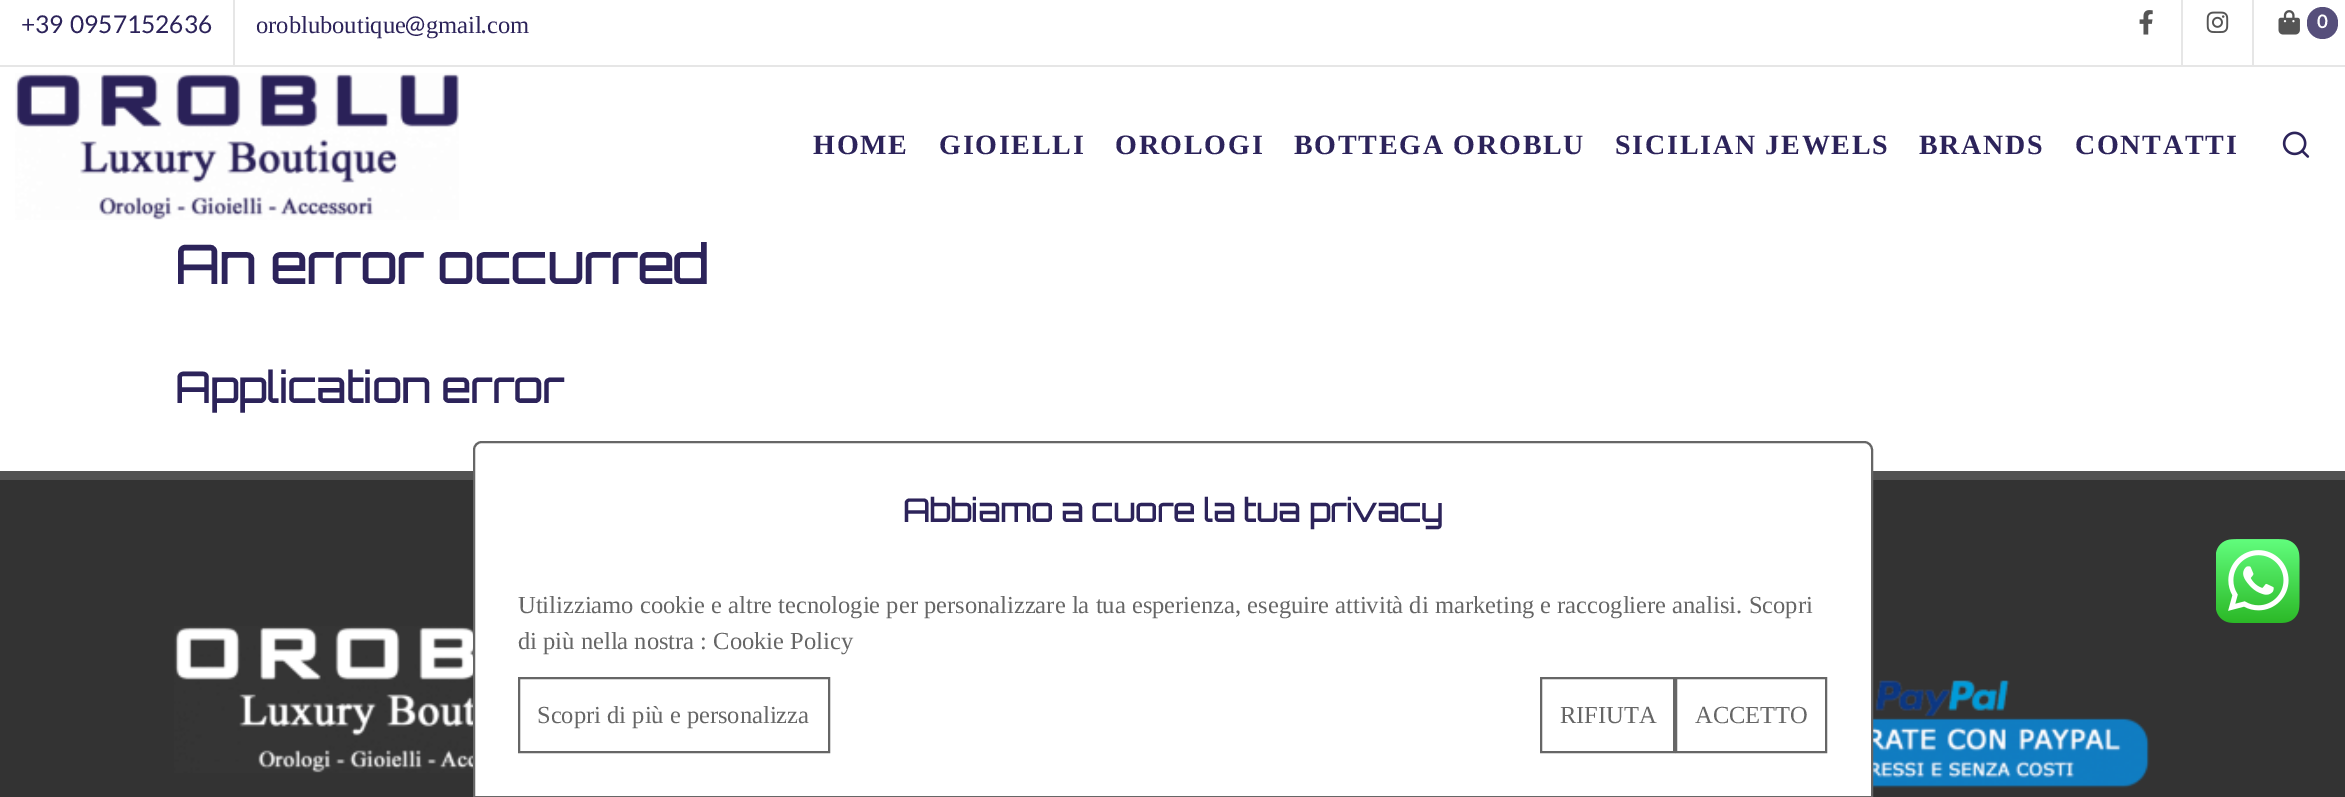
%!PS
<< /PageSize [2345 797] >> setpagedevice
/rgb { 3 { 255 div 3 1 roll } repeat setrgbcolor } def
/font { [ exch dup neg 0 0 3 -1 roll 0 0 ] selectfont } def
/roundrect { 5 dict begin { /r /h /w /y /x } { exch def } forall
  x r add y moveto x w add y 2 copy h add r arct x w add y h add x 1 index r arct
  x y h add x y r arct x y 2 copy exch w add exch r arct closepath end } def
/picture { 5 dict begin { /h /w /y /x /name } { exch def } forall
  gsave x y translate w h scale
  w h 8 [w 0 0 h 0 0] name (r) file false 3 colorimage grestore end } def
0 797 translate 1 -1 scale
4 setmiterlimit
255 255 255 rgb
0 0 2345 797 rectfill
230 230 230 rgb
0 65 2345 2 rectfill
233 0 2 65 rectfill
(img/1.rgb) 2139 10 14 25 picture
2181 0 2 65 rectfill
(img/2.rgb) 2206 11 23 22 picture
2252 0 2 65 rectfill
(img/3.rgb) 2278 10 22 25 picture
86 79 123 rgb
2307 7 31 32 15.5 roundrect fill
(img/4.rgb) 15 73 444 147 picture
(img/5.rgb) 2282 131 28 27 picture
51 51 51 rgb
0 480 2345 317 rectfill
82 82 82 rgb
0 471 2345 9 rectfill
(img/6.rgb) 174 626 299 147 picture
(img/7.rgb) 1873 680 277 108 picture
255 255 255 rgb
482 442 moveto 1864 442 lineto 1868.5 442 1872 445.5 1872 450 curveto 1872 797 lineto 474 797 lineto 474 450 lineto 474 445.5 477.5 442 482 442 curveto closepath gsave fill grestore
102 102 102 rgb
2 setlinewidth
stroke
519 678 310 74 rectstroke
1541 678 133 74 rectstroke
1676 678 150 74 rectstroke
(img/8.rgb) 2216 539 84 84 picture
/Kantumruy-Regular 24.5 font
44 35 90 rgb
21 33 moveto (+39 0957152636) show
/LiberationSerif-Regular 24.5 font
256 33 moveto (orobluboutique) show
/Kantumruy-Regular 24.5 font
405 33 moveto (@) show
/LiberationSerif-Regular 24.5 font
426 33 moveto (gmail) show
/Kantumruy-Regular 24.5 font
481 33 moveto (.) show
/LiberationSerif-Regular 24.5 font
487 33 moveto (com) show
/Kantumruy-Bold 18 font
255 255 255 rgb
2317 28 moveto (0) show
/LiberationSerif-Bold 28 font
44 35 90 rgb
813 154 moveto 1.75 0 (HOME) ashow
939 154 moveto 1.75 0 (GIOIELLI) ashow
1115 154 moveto 1.75 0 (OROLOGI) ashow
1294 154 moveto 1.75 0 (BOTTEGA OROBLU) ashow
1615 154 moveto 1.75 0 (SICILIAN JEWELS) ashow
1919 154 moveto 1.75 0 (BRANDS) ashow
2075 154 moveto 1.75 0 (CONTATTI) ashow
/Orbitron-Bold 52.5 font
175 284 moveto (An error occurred) show
/Orbitron-Bold 42 font
175 403 moveto (Application error) show
/Orbitron-Bold 31.5 font
903 522 moveto (Abbiamo a cuore la tua privacy) show
/LiberationSerif-Regular 24.5 font
102 102 102 rgb
518 613 moveto 0.1 0 32 (Utilizziamo cookie e altre tecnologie per personalizzare la tua esperienza, eseguire attività di marketing e raccogliere analisi. Scopri) widthshow
[
  [(di più nella nostra : Cookie Policy) 518 649]
  [(Scopri di più e personalizza) 537 723]
  [(RIFIUTA) 1560 723]
  [(ACCETTO) 1695 723]
] { aload pop moveto show } forall
showpage
